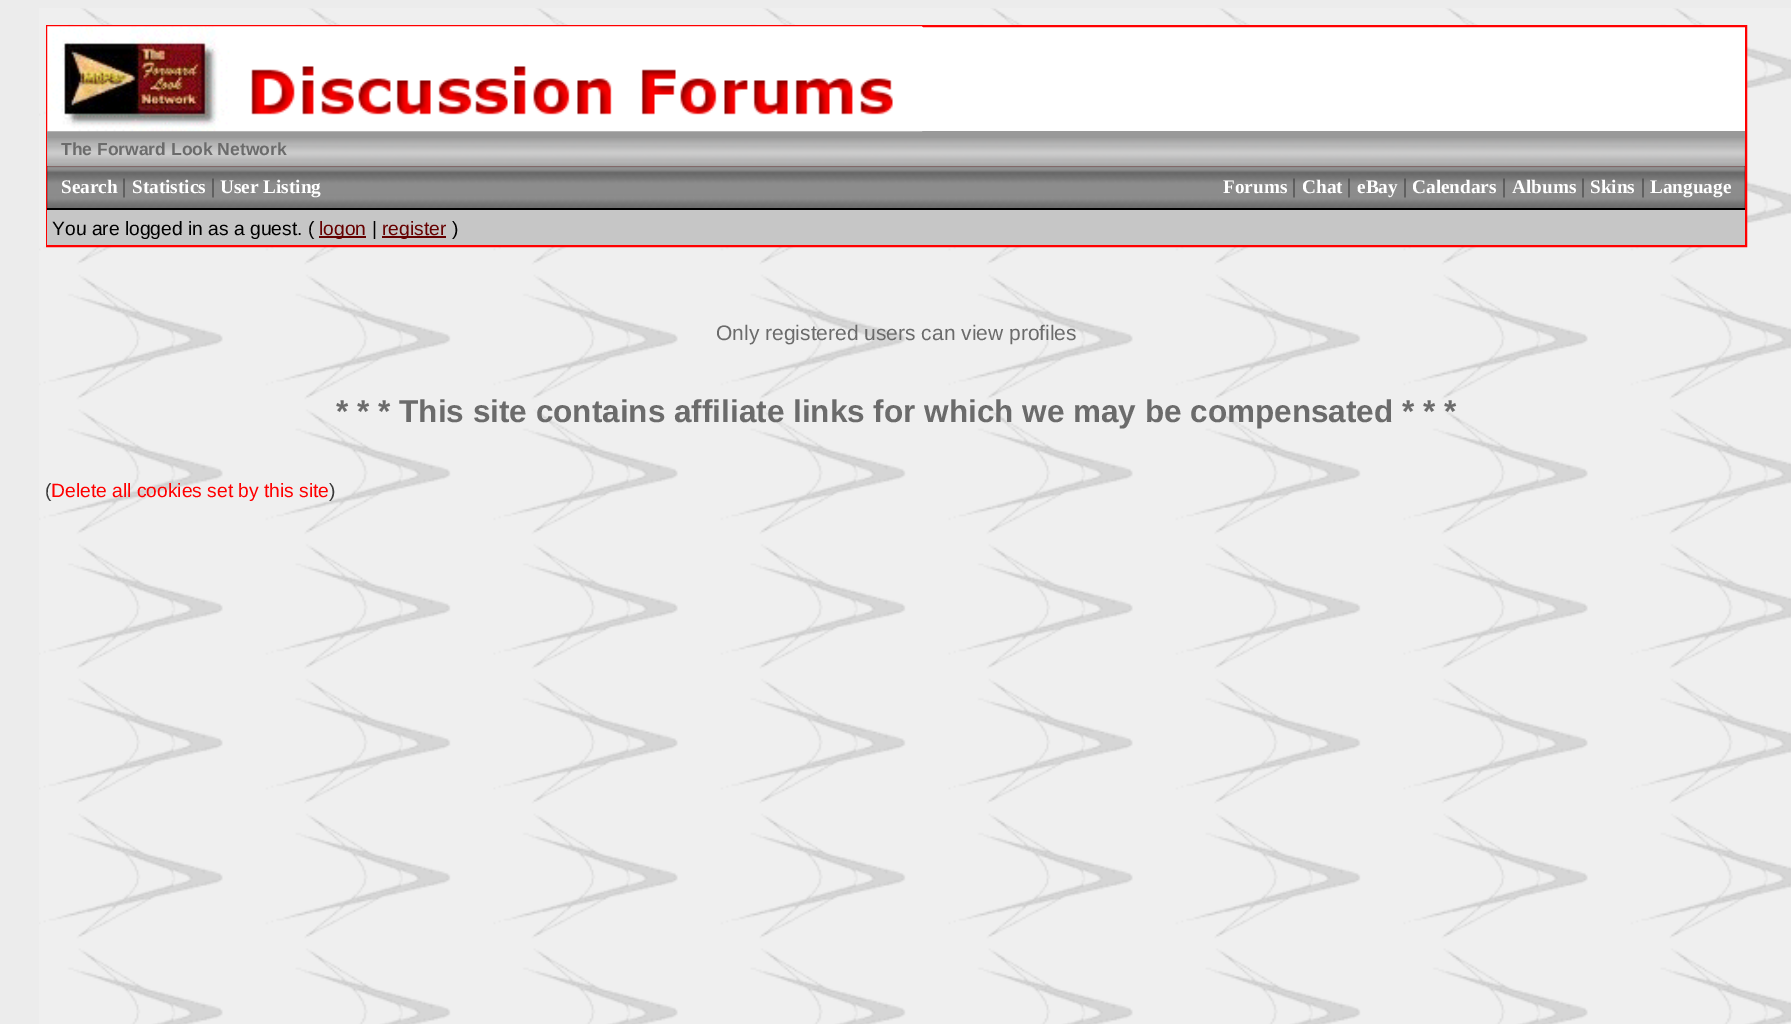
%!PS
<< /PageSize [1791 1024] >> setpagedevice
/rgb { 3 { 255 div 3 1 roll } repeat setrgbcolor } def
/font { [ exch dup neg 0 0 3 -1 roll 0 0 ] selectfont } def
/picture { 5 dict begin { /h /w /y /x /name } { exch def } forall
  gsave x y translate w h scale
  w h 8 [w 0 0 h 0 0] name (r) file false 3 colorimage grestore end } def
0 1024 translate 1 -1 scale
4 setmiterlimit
236 236 236 rgb
0 0 1791 1024 rectfill
(img/1.rgb) 39 8 1752 1016 picture
255 255 255 rgb
922 27 823 104 rectfill
255 0 0 rgb
2 setlinewidth
47 26 1699 220 rectstroke
153 153 153 rgb
47 131 1698 35 rectfill
(img/2.rgb) 47 26 876 106 picture
(img/3.rgb) 47 138 1698 28 picture
102 0 0 rgb
47 166 1698 42 rectfill
(img/4.rgb) 47 166 1698 42 picture
[
  [47 210 1698 35 198 198 198]
  [47 208 1698 2 0 0 0]
  [319 236 47 2 102 0 0]
  [382 236 64 2 102 0 0]
] { aload pop rgb rectfill } forall
/LiberationSans-Bold 17.5 font
107 107 107 rgb
61 155 moveto (The Forward Look Network) show
/LiberationSerif-Bold 19.25 font
255 255 255 rgb
61 193 moveto (Search) show
/LiberationSerif-Regular 21 font
58 58 58 rgb
122 193 moveto (|) show
/LiberationSerif-Bold 19.25 font
255 255 255 rgb
132 193 moveto (Statistics) show
/LiberationSerif-Regular 21 font
58 58 58 rgb
211 193 moveto (|) show
/LiberationSerif-Bold 19.25 font
255 255 255 rgb
220 193 moveto (User Listing) show
1223 193 moveto (Forums) show
/LiberationSerif-Regular 21 font
58 58 58 rgb
1292 193 moveto (|) show
/LiberationSerif-Bold 19.25 font
255 255 255 rgb
1302 193 moveto (Chat) show
/LiberationSerif-Regular 21 font
58 58 58 rgb
1347 193 moveto (|) show
/LiberationSerif-Bold 19.25 font
255 255 255 rgb
1357 193 moveto (eBay) show
/LiberationSerif-Regular 21 font
58 58 58 rgb
1403 193 moveto (|) show
/LiberationSerif-Bold 19.25 font
255 255 255 rgb
1412 193 moveto (Calendars) show
/LiberationSerif-Regular 21 font
58 58 58 rgb
1502 193 moveto (|) show
/LiberationSerif-Bold 19.25 font
255 255 255 rgb
1512 193 moveto (Albums) show
/LiberationSerif-Regular 21 font
58 58 58 rgb
1581 193 moveto (|) show
/LiberationSerif-Bold 19.25 font
255 255 255 rgb
1590 193 moveto (Skins) show
/LiberationSerif-Regular 21 font
58 58 58 rgb
1641 193 moveto (|) show
/LiberationSerif-Bold 19.25 font
255 255 255 rgb
1650 193 moveto (Language) show
/LiberationSans-Regular 19.25 font
0 0 0 rgb
52 235 moveto (You are logged in as a guest. \() show
102 0 0 rgb
319 235 moveto (logon) show
0 0 0 rgb
372 235 moveto (|) show
102 0 0 rgb
382 235 moveto (register) show
0 0 0 rgb
452 235 moveto (\)) show
/LiberationSans-Regular 21 font
107 107 107 rgb
716 340 moveto (Only registered users can view profiles) show
/LiberationSans-Bold 31.5 font
336 422 moveto (* * * This site contains affiliate links for which we may be compensated * * *) show
/LiberationSans-Regular 19.25 font
58 58 58 rgb
45 497 moveto (\() show
255 0 0 rgb
51 497 moveto (Delete all cookies set by this site) show
58 58 58 rgb
329 497 moveto (\)) show
showpage
